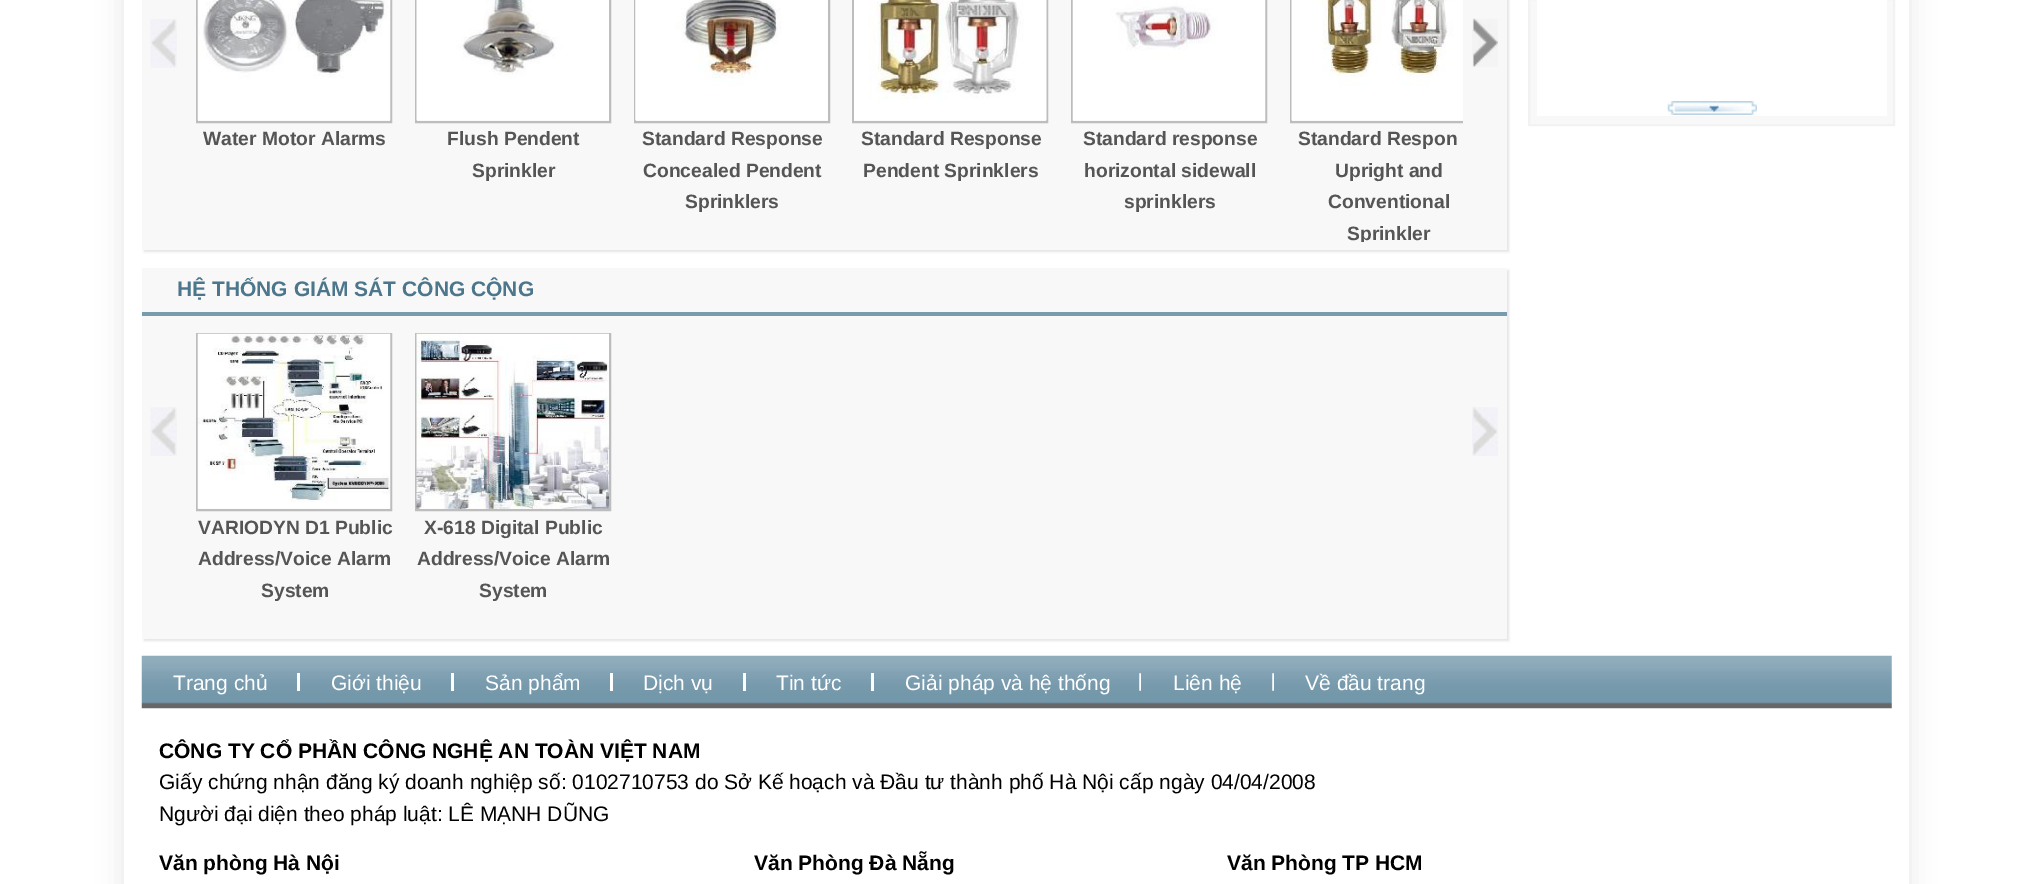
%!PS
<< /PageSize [2033 884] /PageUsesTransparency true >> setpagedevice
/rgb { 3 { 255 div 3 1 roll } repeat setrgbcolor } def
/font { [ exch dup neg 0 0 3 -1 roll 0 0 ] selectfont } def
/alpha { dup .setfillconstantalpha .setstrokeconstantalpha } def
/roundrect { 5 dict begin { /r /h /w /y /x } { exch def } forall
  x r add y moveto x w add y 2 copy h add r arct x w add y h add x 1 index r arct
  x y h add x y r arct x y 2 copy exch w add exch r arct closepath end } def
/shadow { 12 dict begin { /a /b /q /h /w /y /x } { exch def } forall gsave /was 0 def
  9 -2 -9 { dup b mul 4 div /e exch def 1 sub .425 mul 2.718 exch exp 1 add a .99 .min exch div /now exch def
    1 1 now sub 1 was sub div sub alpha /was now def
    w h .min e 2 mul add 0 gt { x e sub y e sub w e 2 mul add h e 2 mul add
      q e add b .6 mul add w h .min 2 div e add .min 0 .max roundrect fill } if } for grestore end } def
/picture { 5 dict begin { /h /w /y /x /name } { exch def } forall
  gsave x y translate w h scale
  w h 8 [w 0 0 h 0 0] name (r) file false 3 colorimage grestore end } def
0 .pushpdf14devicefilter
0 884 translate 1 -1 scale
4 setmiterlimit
255 255 255 rgb
0 0 2033 884 rectfill
0 0 0 rgb
124 -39 1785 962 0 13 0.1 shadow
255 255 255 rgb
124 0 1785 884 rectfill
248 248 248 rgb
1529 -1 moveto 1894 -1 lineto 1894 125 lineto 1529 125 lineto closepath gsave fill grestore
242 242 242 rgb
2 setlinewidth
stroke
255 255 255 rgb
1537 0 350 116 rectfill
(img/1.rgb) 1667 101 90 14 picture
0 0 0 rgb
144 -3 1365 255 0 1 0.1 shadow
248 248 248 rgb
142 0 1365 250 rectfill
(img/2.rgb) 150 19 27 49 picture
gsave
186 0 1277 242 rectclip
189 189 189 rgb
1291 -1 194 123 rectstroke
grestore
(img/3.rgb) 1472 18 26 49 picture
189 189 189 rgb
197 -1 194 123 rectstroke
(img/4.rgb) 197 0 194 121 picture
416 -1 194 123 rectstroke
(img/5.rgb) 416 0 193 121 picture
635 -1 194 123 rectstroke
(img/6.rgb) 635 0 193 121 picture
853 -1 194 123 rectstroke
(img/7.rgb) 854 0 193 121 picture
1072 -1 194 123 rectstroke
(img/8.rgb) 1072 0 194 121 picture
(img/9.rgb) 1291 0 172 121 picture
0 0 0 rgb
144 270 1365 371 0 1 0.1 shadow
248 248 248 rgb
142 268 1365 371 rectfill
120 155 174 rgb
142 312 1365 4 rectfill
(img/10.rgb) 150 407 27 49 picture
(img/11.rgb) 1472 407 26 49 picture
189 189 189 rgb
197 334 194 176 rectstroke
(img/12.rgb) 197 333 194 176 picture
416 334 194 176 rectstroke
(img/13.rgb) 416 333 193 176 picture
(img/14.rgb) 141 655 1751 54 picture
[
  [297 673 3 18 254 254 254]
  [451 673 3 18 254 254 254]
  [610 673 3 18 254 254 254]
  [743 673 3 18 254 254 254]
  [871 673 3 18 254 254 254]
] { aload pop rgb rectfill } forall
(img/15.rgb) 1139 673 2 18 picture
(img/15.rgb) 1272 673 2 18 picture
/LiberationSans-Bold 19.25 font
85 85 85 rgb
[
  [(Water Motor Alarms) 203 145]
  [(Flush Pendent) 447 145]
  [(Sprinkler) 472 177]
  [(Standard Response) 642 145]
  [(Concealed Pendent) 643 177]
  [(Sprinklers) 685 208]
  [(Standard Response) 861 145]
  [(Pendent Sprinklers) 863 177]
  [(Standard response) 1083 145]
  [(horizontal sidewall) 1084 177]
  [(sprinklers) 1124 208]
  [(Standard Respon) 1298 145]
  [(Upright and) 1335 177]
  [(Conventional) 1328 208]
] { aload pop moveto show } forall
gsave
186 0 1277 242 rectclip
1347 240 moveto (Sprinkler) show
grestore
/LiberationSans-Bold 21 font
76 118 140 rgb
177 296 moveto (HỆ THỐNG GIÁM SÁT CÔNG CỘNG) show
/LiberationSans-Bold 19.25 font
85 85 85 rgb
[
  [(VARIODYN D1 Public) 198 534]
  [(Address/Voice Alarm) 198 565]
  [(System) 261 597]
  [(X-618 Digital Public) 424 534]
  [(Address/Voice Alarm) 417 565]
  [(System) 479 597]
] { aload pop moveto show } forall
/LiberationSans-Regular 21 font
255 255 255 rgb
[
  [(Trang chủ) 173 690]
  [(Giới thiệu) 331 690]
  [(Sản phẩm) 485 690]
  [(Dịch vụ) 643 690]
  [(Tin tức) 776 690]
  [(Giải pháp và hệ thống) 905 690]
  [(Liên hệ) 1173 690]
  [(Về đầu trang) 1305 690]
] { aload pop moveto show } forall
/LiberationSans-Bold 21 font
0 0 0 rgb
159 758 moveto (CÔNG TY CỔ PHẦN CÔNG NGHỆ AN TOÀN VIỆT NAM) show
/LiberationSans-Regular 21 font
159 789 moveto (Giấy chứng nhận đăng ký doanh nghiệp số: 0102710753 do Sở Kế hoạch và Đầu tư thành phố Hà Nội cấp ngày 04/04/2008) show
159 821 moveto (Người đại diện theo pháp luật: LÊ MẠNH DŨNG) show
/LiberationSans-Bold 21 font
[
  [(Văn phòng Hà Nội) 159 870]
  [(Văn Phòng Đà Nẵng) 754 870]
  [(Văn Phòng TP HCM) 1227 870]
] { aload pop moveto show } forall
.poppdf14devicefilter showpage
